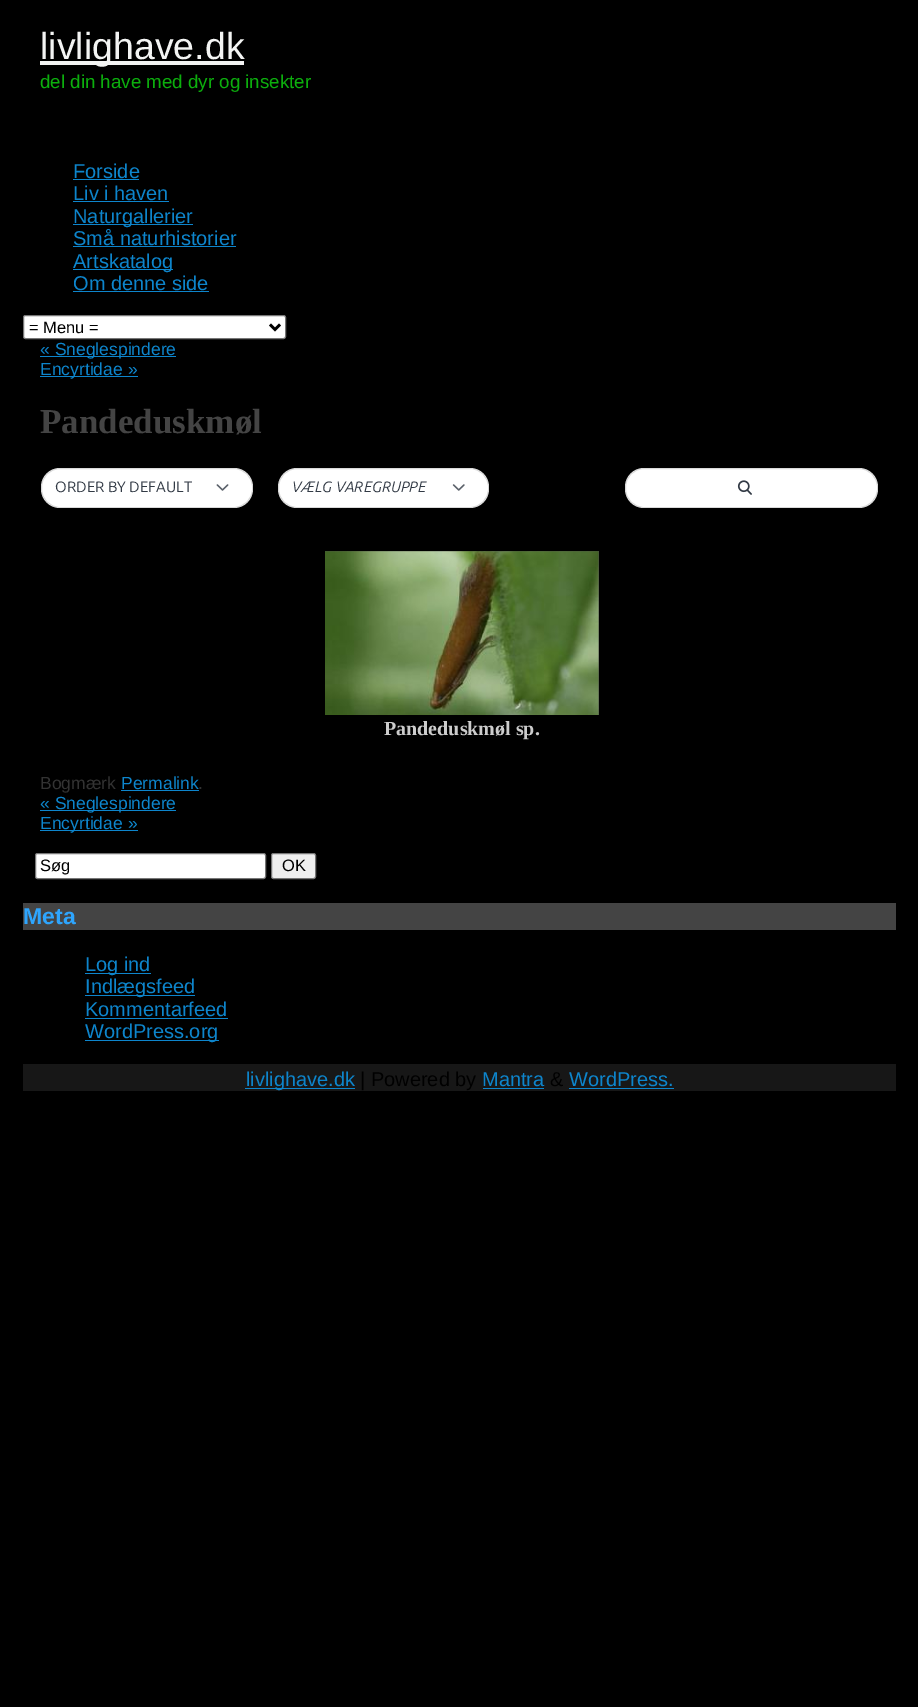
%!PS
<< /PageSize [918 1707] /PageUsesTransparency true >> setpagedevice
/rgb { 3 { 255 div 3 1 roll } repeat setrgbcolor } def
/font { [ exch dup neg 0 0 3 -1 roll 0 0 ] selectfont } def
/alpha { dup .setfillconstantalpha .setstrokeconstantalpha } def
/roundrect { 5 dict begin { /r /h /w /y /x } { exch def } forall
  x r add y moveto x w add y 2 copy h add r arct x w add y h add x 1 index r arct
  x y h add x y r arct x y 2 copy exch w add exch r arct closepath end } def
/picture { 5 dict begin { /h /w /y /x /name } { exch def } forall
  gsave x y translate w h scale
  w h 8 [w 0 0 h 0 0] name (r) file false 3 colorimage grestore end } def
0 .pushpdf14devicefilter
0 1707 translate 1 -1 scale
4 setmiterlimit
0 0 0 rgb
0 0 918 1707 rectfill
[
  [40 61 204 4 243 244 243]
  [73 179 66 1 13 133 204]
  [73 201 96 1 13 133 204]
  [73 224 120 1 13 133 204]
  [73 246 163 1 13 133 204]
  [73 269 100 1 13 133 204]
  [73 291 136 1 13 133 204]
] { aload pop rgb rectfill } forall
255 255 255 rgb
23.5 315.5 262 23 2 roundrect gsave fill grestore
118 118 118 rgb
stroke
0 0 0 rgb
2.5 setlinewidth
270 324.5 moveto 275 329.5 lineto 280 324.5 lineto stroke
13 133 204 rgb
40 356 136 1 rectfill
40 376 98 1 rectfill
255 255 255 rgb
41 468 212 40 19 roundrect fill
0.15 alpha
0 0 0 rgb
1 setlinewidth
41.5 468.5 211 39 18.5 roundrect stroke
1 alpha
(img/1.rgb) 216 484 13 7 picture
255 255 255 rgb
278 468 211 40 19 roundrect fill
0.15 alpha
0 0 0 rgb
278.5 468.5 210 39 18.5 roundrect stroke
1 alpha
(img/2.rgb) 452 484 13 7 picture
255 255 255 rgb
625 468 253 40 19 roundrect fill
0.15 alpha
0 0 0 rgb
625.5 468.5 252 39 18.5 roundrect stroke
1 alpha
(img/3.rgb) 737 480 15 15 picture
77 77 77 rgb
325 551 274 164 rectfill
(img/4.rgb) 325 551 274 164 picture
[
  [121 790 78 1 13 133 204]
  [40 810 136 1 13 133 204]
  [40 830 98 1 13 133 204]
] { aload pop rgb rectfill } forall
255 255 255 rgb
35.5 853.5 230 25 2 roundrect gsave fill grestore
118 118 118 rgb
stroke
239 239 239 rgb
271.5 853.5 44 25 2 roundrect gsave fill grestore
118 118 118 rgb
stroke
[
  [23 903 873 27 68 68 68]
  [85 973 66 1 13 133 204]
  [85 995 110 1 13 133 204]
  [85 1018 143 1 13 133 204]
  [85 1040 134 1 13 133 204]
  [23 1064 873 27 23 23 23]
  [245 1088 110 1 13 133 204]
  [483 1088 61 1 13 133 204]
  [569 1088 105 1 13 133 204]
] { aload pop rgb rectfill } forall
/LiberationSans-Regular 37.5 font
243 244 243 rgb
40 59 moveto (livlighave.dk) show
/LiberationSans-Regular 18.75 font
12 174 13 rgb
40 88 moveto (del din have med dyr og insekter) show
/LiberationSans-Regular 20 font
13 133 204 rgb
[
  [(Forside) 73 178]
  [(Liv i haven) 73 200]
  [(Naturgallerier) 73 223]
  [(Små naturhistorier) 73 245]
  [(Artskatalog) 73 268]
  [(Om denne side) 73 290]
] { aload pop moveto show } forall
/LiberationSans-Regular 16.5 font
0 0 0 rgb
29 333 moveto (= Menu =) show
/LiberationSans-Regular 17.5 font
13 133 204 rgb
40 355 moveto (« Sneglespindere) show
40 375 moveto (Encyrtidae ») show
/LiberationSerif-Bold 35 font
68 68 68 rgb
40 433 moveto (Pandeduskmøl) show
/Ubuntu-Regular 15 font
50 58 69 rgb
55 492 moveto (ORDER BY DEFAULT) show
/Ubuntu-Italic 15 font
292 492 moveto (VÆLG VAREGRUPPE) show
/LiberationSerif-Bold 20 font
204 204 204 rgb
384 735 moveto (Pandeduskmøl sp.) show
/LiberationSans-Regular 17.5 font
51 51 51 rgb
40 789 moveto (Bogmærk) show
13 133 204 rgb
121 789 moveto (Permalink) show
51 51 51 rgb
198 789 moveto (.) show
13 133 204 rgb
40 809 moveto (« Sneglespindere) show
40 829 moveto (Encyrtidae ») show
/LiberationSans-Regular 16.5 font
0 0 0 rgb
40 871 moveto (Søg) show
282 871 moveto (OK) show
/LiberationSans-Bold 23 font
46 165 253 rgb
23 924 moveto (Meta) show
/LiberationSans-Regular 20 font
13 133 204 rgb
[
  [(Log ind) 85 971]
  [(Indlægsfeed) 85 993]
  [(Kommentarfeed) 85 1016]
  [(WordPress.org) 85 1038]
  [(livlighave.dk) 246 1086]
] { aload pop moveto show } forall
0 0 0 rgb
360 1086 moveto (| Powered by) show
13 133 204 rgb
482 1086 moveto (Mantra) show
0 0 0 rgb
550 1086 moveto (&) show
13 133 204 rgb
569 1086 moveto (WordPress.) show
.poppdf14devicefilter showpage
